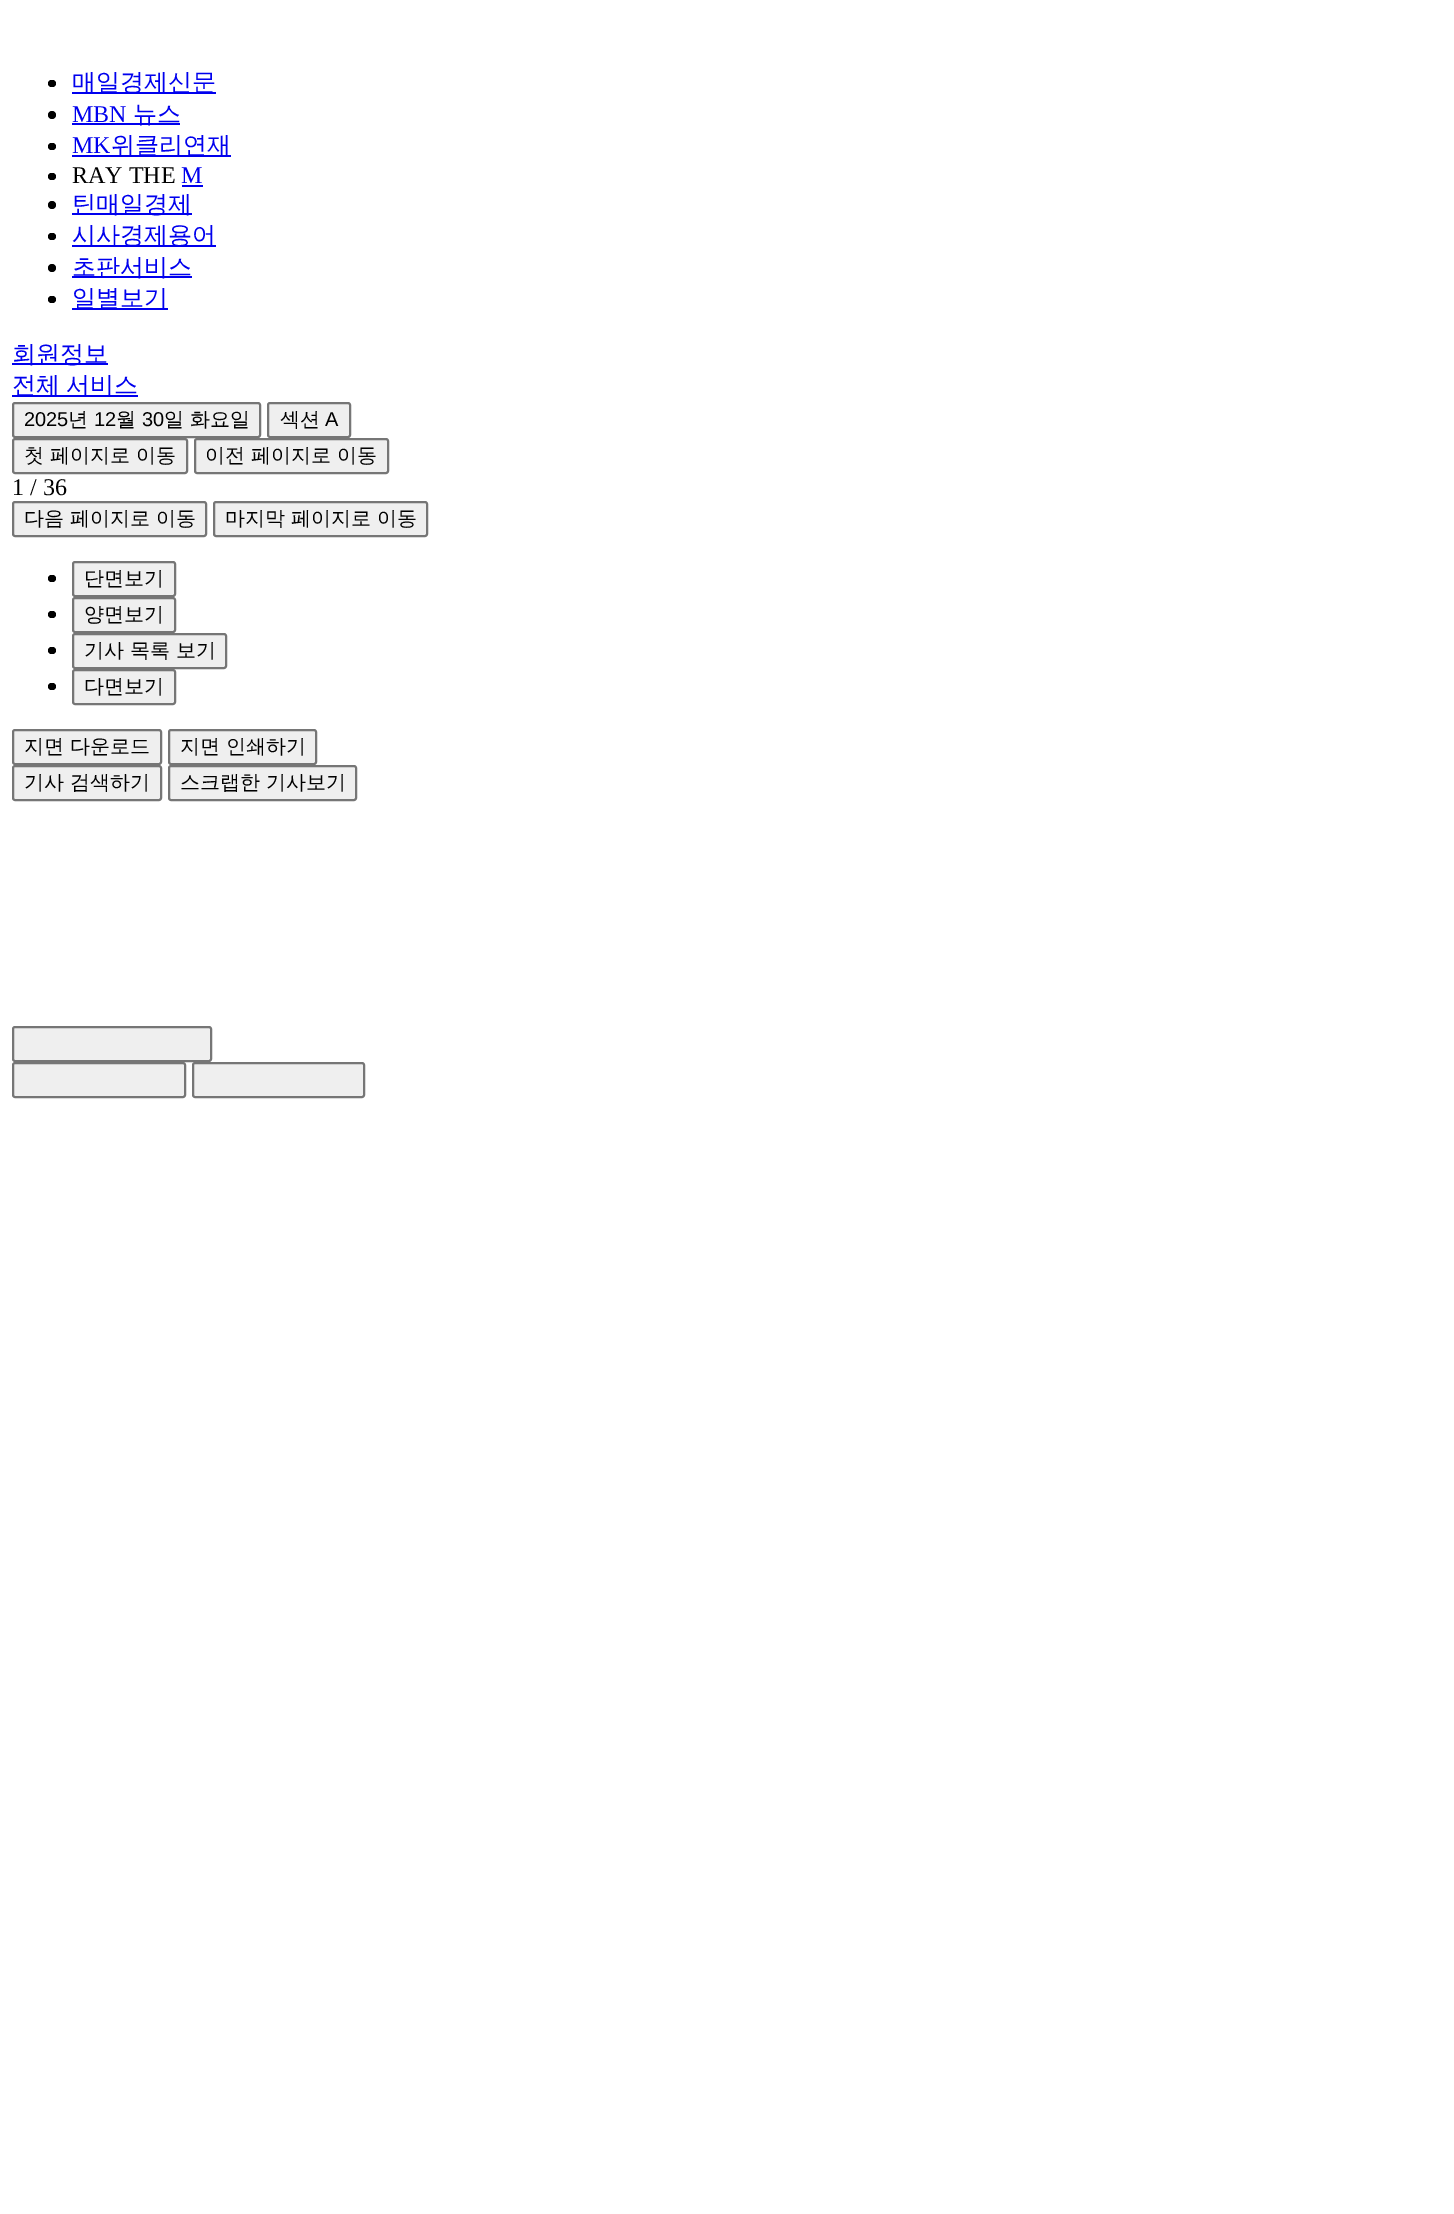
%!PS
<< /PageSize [1454 2214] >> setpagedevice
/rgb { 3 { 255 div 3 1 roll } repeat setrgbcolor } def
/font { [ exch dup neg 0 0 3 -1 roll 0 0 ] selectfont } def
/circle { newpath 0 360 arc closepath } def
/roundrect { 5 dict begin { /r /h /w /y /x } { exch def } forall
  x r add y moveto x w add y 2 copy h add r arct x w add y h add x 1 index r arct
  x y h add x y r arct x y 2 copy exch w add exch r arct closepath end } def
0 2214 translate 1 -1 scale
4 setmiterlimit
255 255 255 rgb
0 0 1454 2214 rectfill
0 0 0 rgb
48 80 8 7 3.5 roundrect fill
0 0 238 rgb
72 92 144 2 rectfill
0 0 0 rgb
52 115 4 circle fill
0 0 238 rgb
72 123 108 2 rectfill
0 0 0 rgb
48 143 8 7 3.5 roundrect fill
0 0 238 rgb
72 155 159 2 rectfill
0 0 0 rgb
48 173 8 7 3.5 roundrect fill
0 0 238 rgb
182 185 21 2 rectfill
0 0 0 rgb
52 205 4 circle fill
0 0 238 rgb
72 213 120 2 rectfill
0 0 0 rgb
48 233 8 7 3.5 roundrect fill
0 0 238 rgb
72 245 144 2 rectfill
0 0 0 rgb
52 268 4 circle fill
0 0 238 rgb
72 276 120 2 rectfill
0 0 0 rgb
48 296 8 7 3.5 roundrect fill
[
  [72 308 96 2 0 0 238]
  [12 363 96 2 0 0 238]
  [12 395 126 2 0 0 238]
] { aload pop rgb rectfill } forall
239 239 239 rgb
13 403 247 34 2 roundrect gsave fill grestore
118 118 118 rgb
2 setlinewidth
stroke
239 239 239 rgb
268 403 82 34 2 roundrect gsave fill grestore
118 118 118 rgb
stroke
239 239 239 rgb
13 439 174 34 2 roundrect gsave fill grestore
118 118 118 rgb
stroke
239 239 239 rgb
195 439 193 34 2 roundrect gsave fill grestore
118 118 118 rgb
stroke
239 239 239 rgb
13 502 193 34 2 roundrect gsave fill grestore
118 118 118 rgb
stroke
239 239 239 rgb
214 502 213 34 2 roundrect gsave fill grestore
118 118 118 rgb
stroke
0 0 0 rgb
48 575 8 7 3.5 roundrect fill
239 239 239 rgb
73 562 102 34 2 roundrect gsave fill grestore
118 118 118 rgb
stroke
0 0 0 rgb
48 611 8 7 3.5 roundrect fill
239 239 239 rgb
73 598 102 34 2 roundrect gsave fill grestore
118 118 118 rgb
stroke
0 0 0 rgb
48 647 8 7 3.5 roundrect fill
239 239 239 rgb
73 634 153 34 2 roundrect gsave fill grestore
118 118 118 rgb
stroke
0 0 0 rgb
48 683 8 7 3.5 roundrect fill
239 239 239 rgb
73 670 102 34 2 roundrect gsave fill grestore
118 118 118 rgb
stroke
239 239 239 rgb
13 730 148 34 2 roundrect gsave fill grestore
118 118 118 rgb
stroke
239 239 239 rgb
169 730 147 34 2 roundrect gsave fill grestore
118 118 118 rgb
stroke
239 239 239 rgb
13 766 148 34 2 roundrect gsave fill grestore
118 118 118 rgb
stroke
239 239 239 rgb
169 766 187 34 2 roundrect gsave fill grestore
118 118 118 rgb
stroke
239 239 239 rgb
13 1027 198 34 2 roundrect gsave fill grestore
118 118 118 rgb
stroke
239 239 239 rgb
13 1063 172 34 2 roundrect gsave fill grestore
118 118 118 rgb
stroke
239 239 239 rgb
193 1063 171 34 2 roundrect gsave fill grestore
118 118 118 rgb
stroke
/WenQuanYiZenHei-Medium 24 font
0 0 238 rgb
72 90 moveto (매일경제신문) show
/LiberationSerif-Regular 24 font
72 122 moveto (MBN) show
/WenQuanYiZenHei-Medium 24 font
133 122 moveto (뉴스) show
/LiberationSerif-Regular 24 font
72 153 moveto (MK) show
/WenQuanYiZenHei-Medium 24 font
111 153 moveto (위클리연재) show
/LiberationSerif-Regular 24 font
0 0 0 rgb
72 183 moveto (RAY THE) show
0 0 238 rgb
181 183 moveto (M) show
/WenQuanYiZenHei-Medium 24 font
[
  [(틴매일경제) 72 212]
  [(시사경제용어) 72 243]
  [(초판서비스) 72 275]
  [(일별보기) 72 306]
  [(회원정보) 12 362]
] { aload pop moveto show } forall
12 393 moveto -1 0 32 (전체 서비스) widthshow
/LiberationSans-Regular 20 font
0 0 0 rgb
24 426 moveto (2025) show
/WenQuanYiZenHei-Medium 20 font
68 426 moveto (년) show
/LiberationSans-Regular 20 font
94 426 moveto (12) show
/WenQuanYiZenHei-Medium 20 font
116 426 moveto (월) show
/LiberationSans-Regular 20 font
142 426 moveto (30) show
/WenQuanYiZenHei-Medium 20 font
164 426 moveto (일 화요일) show
280 426 moveto (섹션) show
/LiberationSans-Regular 20 font
325 426 moveto (A) show
/WenQuanYiZenHei-Medium 20 font
24 462 moveto (첫 페이지로 이동) show
205 462 moveto (이전 페이지로 이동) show
/LiberationSerif-Regular 24 font
12 495 moveto (1 / 36) show
/WenQuanYiZenHei-Medium 20 font
[
  [(다음 페이지로 이동) 24 525]
  [(마지막 페이지로 이동) 225 525]
  [(단면보기) 84 585]
  [(양면보기) 84 621]
  [(기사 목록 보기) 84 657]
  [(다면보기) 84 693]
  [(지면 다운로드) 24 753]
  [(지면 인쇄하기) 180 753]
  [(기사 검색하기) 24 789]
  [(스크랩한 기사보기) 180 789]
] { aload pop moveto show } forall
showpage
